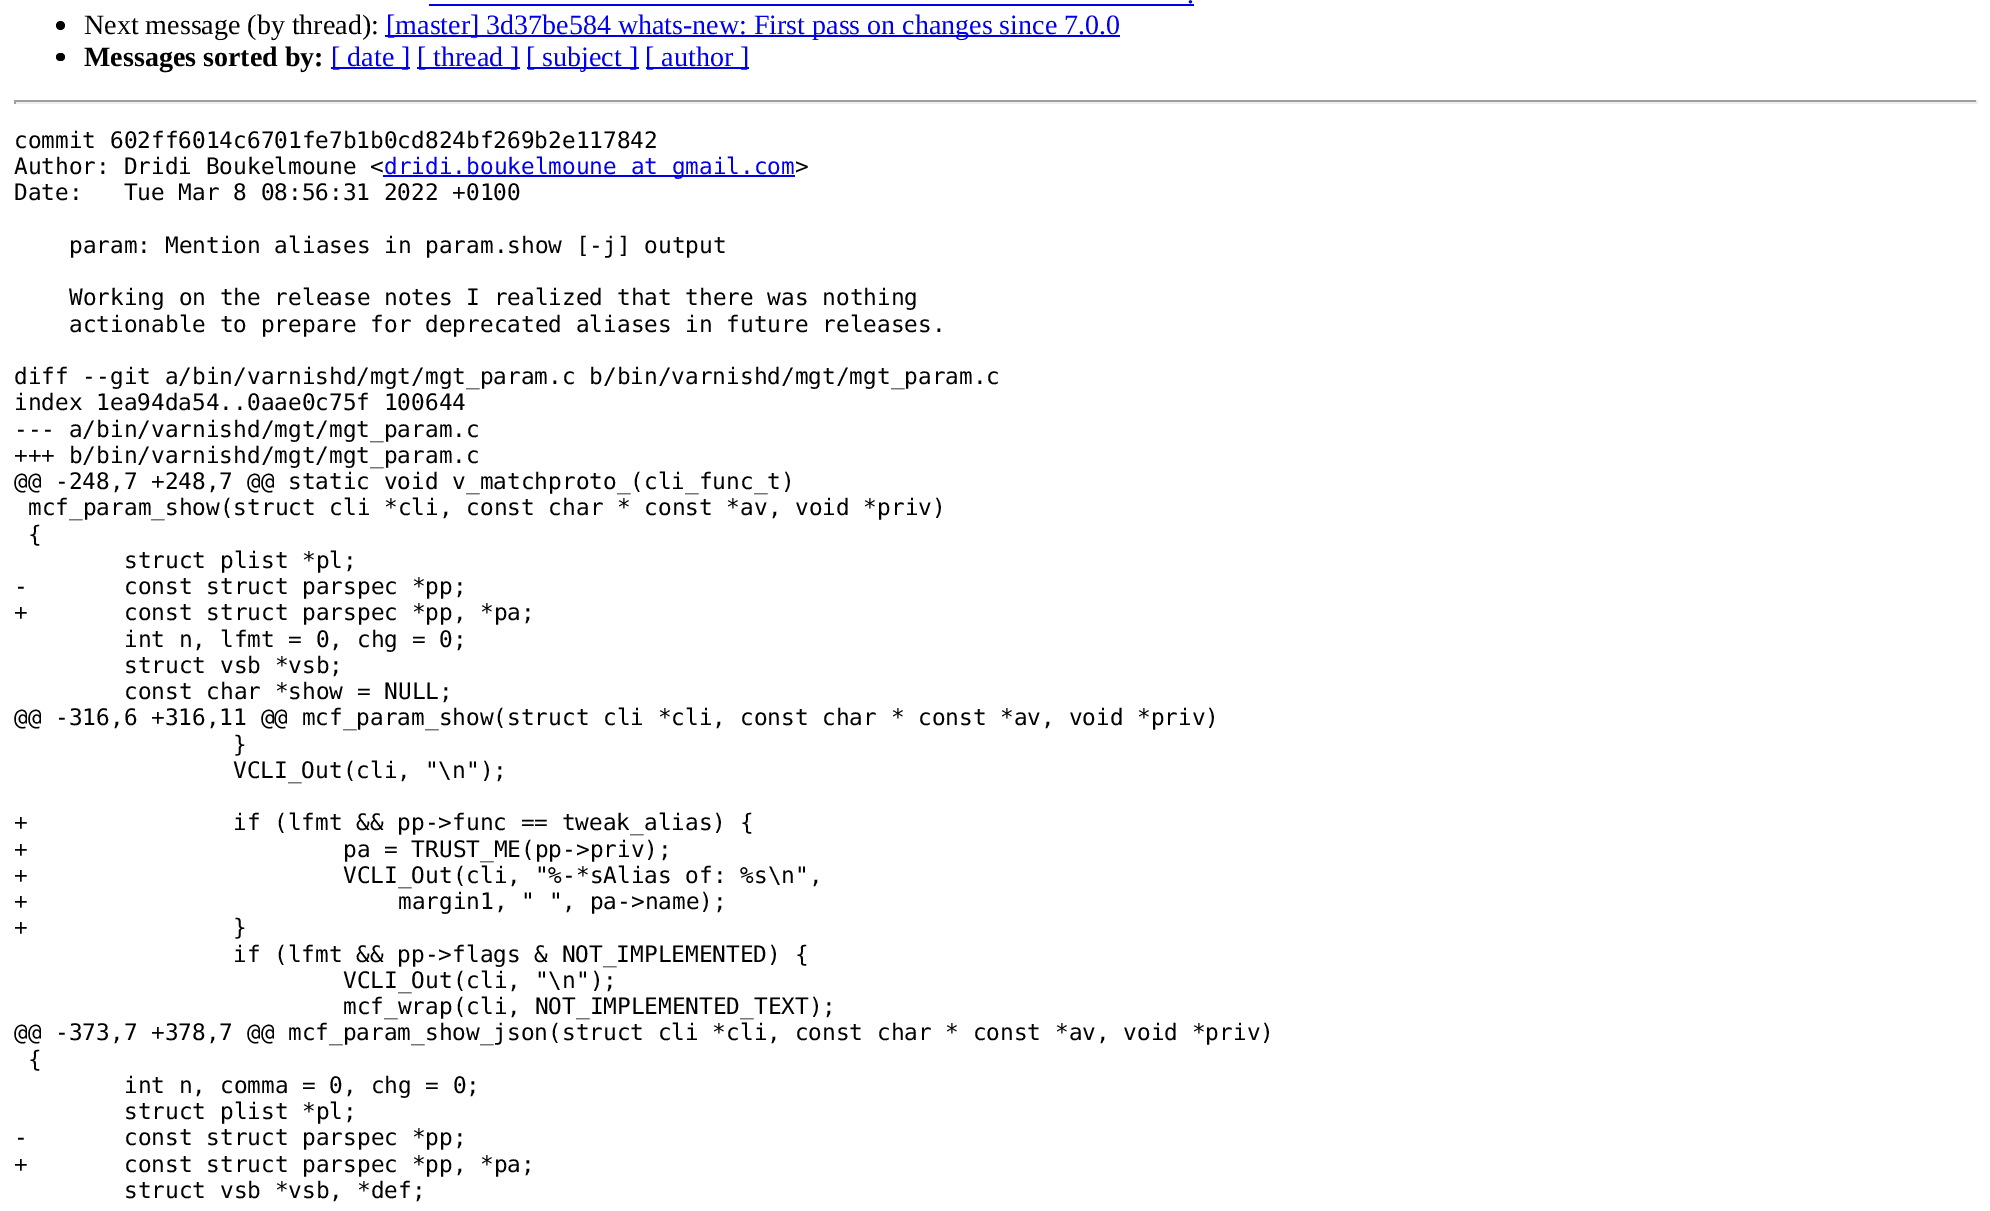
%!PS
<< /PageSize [1990 1211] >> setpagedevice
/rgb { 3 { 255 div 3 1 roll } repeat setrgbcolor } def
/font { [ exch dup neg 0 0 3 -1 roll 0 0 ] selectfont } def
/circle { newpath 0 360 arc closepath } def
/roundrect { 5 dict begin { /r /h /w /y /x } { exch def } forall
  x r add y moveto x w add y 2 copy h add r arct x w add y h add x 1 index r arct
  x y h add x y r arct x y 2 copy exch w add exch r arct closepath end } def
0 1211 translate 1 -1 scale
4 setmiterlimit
255 255 255 rgb
0 0 1990 1211 rectfill
0 0 238 rgb
429 4 765 2 rectfill
0 0 0 rgb
60.5 25.5 4.5 circle fill
0 0 238 rgb
385 35 735 2 rectfill
0 0 0 rgb
56 53 9 8 4 roundrect fill
[
  [331 67 79 2 0 0 238]
  [417 67 103 2 0 0 238]
  [527 67 112 2 0 0 238]
  [646 67 103 2 0 0 238]
  [14 100 1964 2 159 159 159]
  [1976 100 2 4 238 238 238]
  [14 102 1964 2 238 238 238]
  [14 100 2 4 159 159 159]
  [383 175 412 2 0 0 238]
] { aload pop rgb rectfill } forall
/LiberationSerif-Regular 28 font
1187 3 moveto (.) show
0 0 0 rgb
84 34 moveto (Next message \(by thread\):) show
0 0 238 rgb
386 34 moveto ([master] 3d37be584 whats-new: First pass on changes since 7.0.0) show
/LiberationSerif-Bold 28 font
0 0 0 rgb
84 66 moveto (Messages sorted by:) show
/LiberationSerif-Regular 28 font
0 0 238 rgb
[
  [([ date ]) 331 66]
  [([ thread ]) 417 66]
  [([ subject ]) 526 66]
  [([ author ]) 645 66]
] { aload pop moveto show } forall
/DejaVuSansMono-Regular 22.75 font
0 0 0 rgb
14 148 moveto (commit 602ff6014c6701fe7b1b0cd824bf269b2e117842) show
14 174 moveto (Author: Dridi Boukelmoune <) show
0 0 238 rgb
384 174 moveto (dridi.boukelmoune at gmail.com) show
0 0 0 rgb
[
  [(>) 795 174]
  [(Date:   Tue Mar 8 08:56:31 2022 +0100) 14 200]
  [(param: Mention aliases in param.show [-j] output) 69 253]
  [(Working on the release notes I realized that there was nothing) 69 305]
  [(actionable to prepare for deprecated aliases in future releases.) 69 332]
  [(diff --git a/bin/varnishd/mgt/mgt_param.c b/bin/varnishd/mgt/mgt_param.c) 14 384]
  [(index 1ea94da54..0aae0c75f 100644) 14 410]
  [(--- a/bin/varnishd/mgt/mgt_param.c) 14 437]
  [(+++ b/bin/varnishd/mgt/mgt_param.c) 14 463]
  [(@@ -248,7 +248,7 @@ static void v_matchproto_\(cli_func_t\)) 14 489]
  [(mcf_param_show\(struct cli *cli, const char * const *av, void *priv\)) 28 515]
  [({) 28 542]
  [(struct plist *pl;) 124 568]
  [(-) 14 594]
  [(const struct parspec *pp;) 124 594]
  [(+) 14 620]
  [(const struct parspec *pp, *pa;) 124 620]
  [(int n, lfmt = 0, chg = 0;) 124 647]
  [(struct vsb *vsb;) 124 673]
  [(const char *show = NULL;) 124 699]
  [(@@ -316,6 +316,11 @@ mcf_param_show\(struct cli *cli, const char * const *av, void *priv\)) 14 725]
  [(}) 233 752]
  [(VCLI_Out\(cli, "\\n"\);) 233 778]
  [(+) 14 830]
  [(if \(lfmt && pp->func == tweak_alias\) {) 233 830]
  [(+) 14 857]
  [(pa = TRUST_ME\(pp->priv\);) 343 857]
  [(+) 14 883]
  [(VCLI_Out\(cli, "%-*sAlias of: %s\\n",) 343 883]
  [(+) 14 909]
  [(margin1, " ", pa->name\);) 398 909]
  [(+) 14 935]
  [(}) 233 935]
  [(if \(lfmt && pp->flags & NOT_IMPLEMENTED\) {) 233 962]
  [(VCLI_Out\(cli, "\\n"\);) 343 988]
  [(mcf_wrap\(cli, NOT_IMPLEMENTED_TEXT\);) 343 1014]
  [(@@ -373,7 +378,7 @@ mcf_param_show_json\(struct cli *cli, const char * const *av, void *priv\)) 14 1040]
  [({) 28 1067]
  [(int n, comma = 0, chg = 0;) 124 1093]
  [(struct plist *pl;) 124 1119]
  [(-) 14 1145]
  [(const struct parspec *pp;) 124 1145]
  [(+) 14 1172]
  [(const struct parspec *pp, *pa;) 124 1172]
  [(struct vsb *vsb, *def;) 124 1198]
] { aload pop moveto show } forall
showpage
